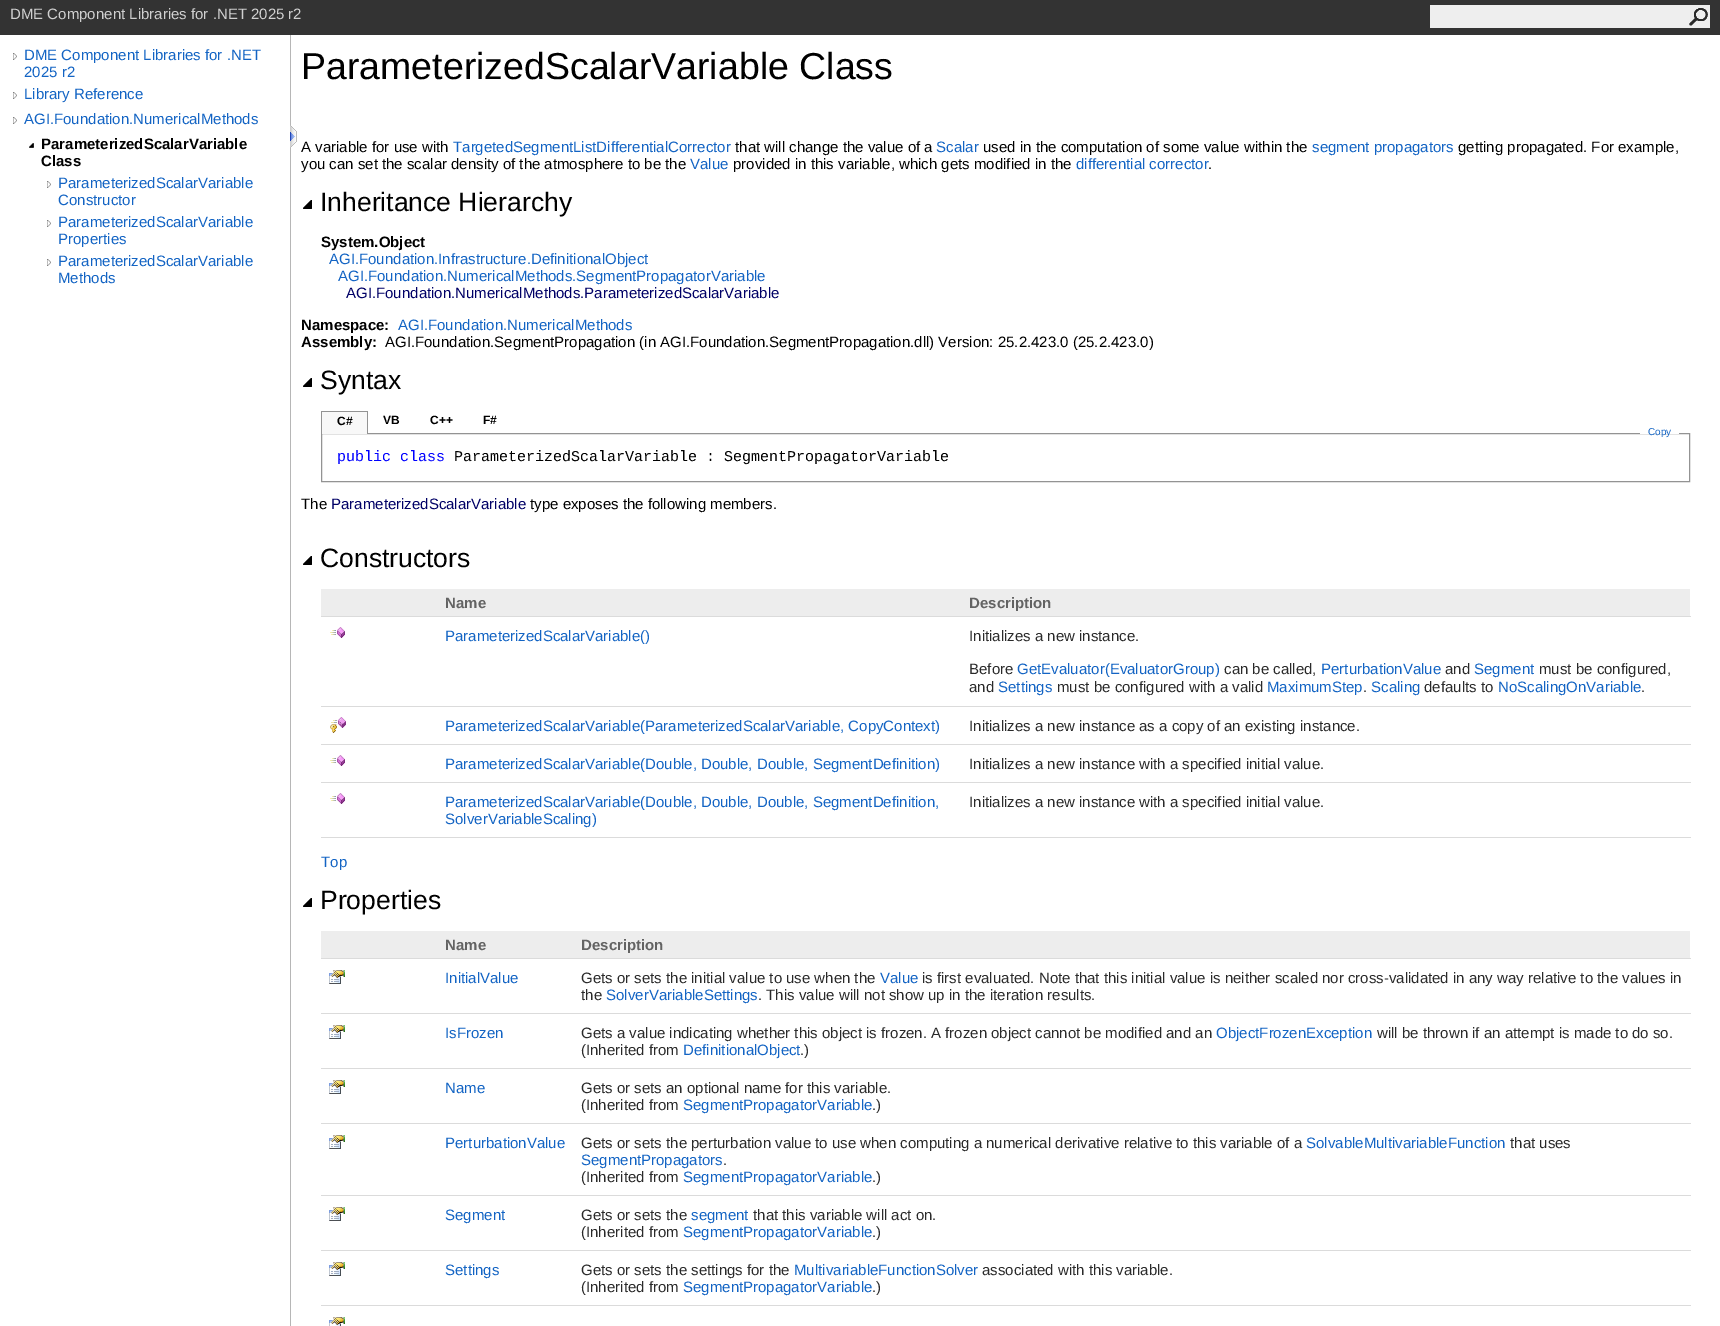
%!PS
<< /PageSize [1720 1326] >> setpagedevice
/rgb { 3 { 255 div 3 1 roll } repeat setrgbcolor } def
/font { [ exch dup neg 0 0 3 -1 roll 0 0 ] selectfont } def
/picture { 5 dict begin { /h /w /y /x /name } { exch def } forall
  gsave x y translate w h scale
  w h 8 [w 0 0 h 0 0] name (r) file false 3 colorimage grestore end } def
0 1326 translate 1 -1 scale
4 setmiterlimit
255 255 255 rgb
0 0 1720 1326 rectfill
51 51 51 rgb
0 0 1720 35 rectfill
238 238 238 rgb
1430 5 280 23 rectfill
(img/1.rgb) 1689 8 19 18 picture
182 182 182 rgb
290 35 1 1291 rectfill
(img/2.rgb) 13 53 4 7 picture
(img/2.rgb) 13 92 4 7 picture
(img/2.rgb) 13 117 4 7 picture
(img/3.rgb) 29 143 5 5 picture
(img/2.rgb) 47 181 4 7 picture
(img/2.rgb) 47 220 4 7 picture
(img/2.rgb) 47 259 4 7 picture
(img/4.rgb) 290 125 7 23 picture
(img/5.rgb) 303 200 9 9 picture
(img/5.rgb) 303 378 9 9 picture
147 147 147 rgb
321.5 433.5 1368 48 rectstroke
[
  [322 412 45 22 248 248 248]
  [321 411 47 1 147 147 147]
  [367 411 1 23 147 147 147]
  [321 411 1 23 147 147 147]
  [1640 433 39 1 255 255 255]
] { aload pop rgb rectfill } forall
(img/5.rgb) 303 556 9 9 picture
237 237 237 rgb
321 589 1369 27 rectfill
219 219 219 rgb
321 616 1370 1 rectfill
(img/6.rgb) 330 627 15 11 picture
321 706 1370 1 rectfill
(img/7.rgb) 330 717 16 16 picture
321 744 1370 1 rectfill
(img/6.rgb) 330 755 15 11 picture
321 782 1370 1 rectfill
(img/6.rgb) 330 793 15 11 picture
321 837 1370 1 rectfill
(img/5.rgb) 303 898 9 9 picture
237 237 237 rgb
321 931 1369 27 rectfill
219 219 219 rgb
321 958 1370 1 rectfill
(img/8.rgb) 329 970 16 14 picture
321 1013 1370 1 rectfill
(img/8.rgb) 329 1025 16 14 picture
321 1068 1370 1 rectfill
(img/8.rgb) 329 1080 16 14 picture
321 1123 1370 1 rectfill
(img/8.rgb) 329 1135 16 14 picture
321 1195 1370 1 rectfill
(img/8.rgb) 329 1207 16 14 picture
321 1250 1370 1 rectfill
(img/8.rgb) 329 1262 16 14 picture
321 1305 1370 1 rectfill
(img/9.rgb) 329 1317 16 9 picture
/LiberationSans-Regular 15 font
208 208 208 rgb
10 19 moveto (DME Component Libraries for .NET 2025 r2) show
19 100 196 rgb
[
  [(DME Component Libraries for .NET) 24 60]
  [(2025 r2) 24 77]
  [(Library Reference) 24 99]
  [(AGI.Foundation.NumericalMethods) 24 124]
] { aload pop moveto show } forall
/LiberationSans-Bold 15 font
0 0 0 rgb
41 149 moveto (ParameterizedScalarVariable) show
41 166 moveto (Class) show
/LiberationSans-Regular 15 font
19 100 196 rgb
[
  [(ParameterizedScalarVariable) 58 188]
  [(Constructor) 58 205]
  [(ParameterizedScalarVariable) 58 227]
  [(Properties) 58 244]
  [(ParameterizedScalarVariable) 58 266]
  [(Methods) 58 283]
] { aload pop moveto show } forall
/LiberationSans-Regular 37.5 font
0 0 0 rgb
301 79 moveto (ParameterizedScalarVariable Class) show
/LiberationSans-Regular 15 font
301 152 moveto (A variable for use with) show
19 100 196 rgb
453 152 moveto (TargetedSegmentListDifferentialCorrector) show
0 0 0 rgb
735 152 moveto (that will change the value of a) show
19 100 196 rgb
936 152 moveto (Scalar) show
0 0 0 rgb
983 152 moveto (used in the computation of some value within the) show
19 100 196 rgb
1312 152 moveto (segment propagators) show
0 0 0 rgb
1458 152 moveto (getting propagated. For example,) show
301 169 moveto (you can set the scalar density of the atmosphere to be the) show
19 100 196 rgb
690 169 moveto (Value) show
0 0 0 rgb
733 169 moveto (provided in this variable, which gets modified in the) show
19 100 196 rgb
1076 169 moveto (differential corrector) show
0 0 0 rgb
1208 169 moveto (.) show
/LiberationSans-Regular 26.5 font
320 211 moveto (Inheritance Hierarchy) show
/LiberationSans-Bold 15 font
321 247 moveto (System.Object) show
/LiberationSans-Regular 15 font
19 100 196 rgb
329 264 moveto (AGI.Foundation.Infrastructure.DefinitionalObject) show
338 281 moveto (AGI.Foundation.NumericalMethods.SegmentPropagatorVariable) show
0 0 102 rgb
346 298 moveto (AGI.Foundation.NumericalMethods.ParameterizedScalarVariable) show
/LiberationSans-Bold 15 font
0 0 0 rgb
301 330 moveto (Namespace:) show
/LiberationSans-Regular 15 font
19 100 196 rgb
398 330 moveto (AGI.Foundation.NumericalMethods) show
/LiberationSans-Bold 15 font
0 0 0 rgb
301 347 moveto (Assembly:) show
/LiberationSans-Regular 15 font
385 347 moveto (AGI.Foundation.SegmentPropagation \(in AGI.Foundation.SegmentPropagation.dll\) Version: 25.2.423.0 \(25.2.423.0\)) show
/LiberationSans-Regular 26.5 font
320 389 moveto (Syntax) show
/LiberationSans-Bold 12 font
[
  [(C#) 337 425]
  [(VB) 383 424]
  [(C++) 430 424]
  [(F#) 483 424]
] { aload pop moveto show } forall
/LiberationSans-Regular 10 font
19 100 196 rgb
1648 435 moveto (Copy) show
/LiberationMono-Regular 15 font
0 0 255 rgb
337 461 moveto (public class) show
0 0 0 rgb
454 461 moveto (ParameterizedScalarVariable : SegmentPropagatorVariable) show
/LiberationSans-Regular 15 font
301 509 moveto (The) show
0 0 102 rgb
331 509 moveto (ParameterizedScalarVariable) show
0 0 0 rgb
530 509 moveto (type exposes the following members.) show
/LiberationSans-Regular 26.5 font
320 567 moveto (Constructors) show
/LiberationSans-Bold 15 font
99 99 99 rgb
445 608 moveto (Name) show
969 608 moveto (Description) show
/LiberationSans-Regular 15 font
19 100 196 rgb
445 641 moveto (ParameterizedScalarVariable\(\)) show
42 42 42 rgb
969 641 moveto (Initializes a new instance.) show
969 674 moveto (Before) show
19 100 196 rgb
1017 674 moveto (GetEvaluator\(EvaluatorGroup\)) show
42 42 42 rgb
1224 674 moveto (can be called,) show
19 100 196 rgb
1321 674 moveto (PerturbationValue) show
42 42 42 rgb
1445 674 moveto (and) show
19 100 196 rgb
1474 674 moveto (Segment) show
42 42 42 rgb
1539 674 moveto (must be configured,) show
969 692 moveto (and) show
19 100 196 rgb
998 692 moveto (Settings) show
42 42 42 rgb
1057 692 moveto (must be configured with a valid) show
19 100 196 rgb
1267 692 moveto (MaximumStep) show
42 42 42 rgb
1363 692 moveto (.) show
19 100 196 rgb
1371 692 moveto (Scaling) show
42 42 42 rgb
1424 692 moveto (defaults to) show
19 100 196 rgb
1498 692 moveto (NoScalingOnVariable) show
42 42 42 rgb
1641 692 moveto (.) show
19 100 196 rgb
445 731 moveto (ParameterizedScalarVariable\(ParameterizedScalarVariable, CopyContext\)) show
42 42 42 rgb
969 731 moveto (Initializes a new instance as a copy of an existing instance.) show
19 100 196 rgb
445 769 moveto (ParameterizedScalarVariable\(Double, Double, Double, SegmentDefinition\)) show
42 42 42 rgb
969 769 moveto (Initializes a new instance with a specified initial value.) show
19 100 196 rgb
445 807 moveto (ParameterizedScalarVariable\(Double, Double, Double, SegmentDefinition,) show
445 824 moveto (SolverVariableScaling\)) show
42 42 42 rgb
969 807 moveto (Initializes a new instance with a specified initial value.) show
19 100 196 rgb
321 867 moveto (Top) show
/LiberationSans-Regular 26.5 font
0 0 0 rgb
320 909 moveto (Properties) show
/LiberationSans-Bold 15 font
99 99 99 rgb
445 950 moveto (Name) show
581 950 moveto (Description) show
/LiberationSans-Regular 15 font
19 100 196 rgb
445 983 moveto (InitialValue) show
42 42 42 rgb
581 983 moveto (Gets or sets the initial value to use when the) show
19 100 196 rgb
880 983 moveto (Value) show
42 42 42 rgb
922 983 moveto (is first evaluated. Note that this initial value is neither scaled nor cross-validated in any way relative to the values in) show
581 1000 moveto (the) show
19 100 196 rgb
606 1000 moveto (SolverVariableSettings) show
42 42 42 rgb
758 1000 moveto (. This value will not show up in the iteration results.) show
19 100 196 rgb
445 1038 moveto (IsFrozen) show
42 42 42 rgb
581 1038 moveto (Gets a value indicating whether this object is frozen. A frozen object cannot be modified and an) show
19 100 196 rgb
1216 1038 moveto (ObjectFrozenException) show
42 42 42 rgb
1377 1038 moveto (will be thrown if an attempt is made to do so.) show
581 1055 moveto (\(Inherited from) show
19 100 196 rgb
683 1055 moveto (DefinitionalObject) show
42 42 42 rgb
800 1055 moveto (.\)) show
19 100 196 rgb
445 1093 moveto (Name) show
42 42 42 rgb
581 1093 moveto (Gets or sets an optional name for this variable.) show
581 1110 moveto (\(Inherited from) show
19 100 196 rgb
683 1110 moveto (SegmentPropagatorVariable) show
42 42 42 rgb
872 1110 moveto (.\)) show
19 100 196 rgb
445 1148 moveto (PerturbationValue) show
42 42 42 rgb
581 1148 moveto (Gets or sets the perturbation value to use when computing a numerical derivative relative to this variable of a) show
19 100 196 rgb
1306 1148 moveto (SolvableMultivariableFunction) show
42 42 42 rgb
1510 1148 moveto (that uses) show
19 100 196 rgb
581 1165 moveto (SegmentPropagators) show
42 42 42 rgb
723 1165 moveto (.) show
581 1182 moveto (\(Inherited from) show
19 100 196 rgb
683 1182 moveto (SegmentPropagatorVariable) show
42 42 42 rgb
872 1182 moveto (.\)) show
19 100 196 rgb
445 1220 moveto (Segment) show
42 42 42 rgb
581 1220 moveto (Gets or sets the) show
19 100 196 rgb
691 1220 moveto (segment) show
42 42 42 rgb
753 1220 moveto (that this variable will act on.) show
581 1237 moveto (\(Inherited from) show
19 100 196 rgb
683 1237 moveto (SegmentPropagatorVariable) show
42 42 42 rgb
872 1237 moveto (.\)) show
19 100 196 rgb
445 1275 moveto (Settings) show
42 42 42 rgb
581 1275 moveto (Gets or sets the settings for the) show
19 100 196 rgb
794 1275 moveto (MultivariableFunctionSolver) show
42 42 42 rgb
982 1275 moveto (associated with this variable.) show
581 1292 moveto (\(Inherited from) show
19 100 196 rgb
683 1292 moveto (SegmentPropagatorVariable) show
42 42 42 rgb
872 1292 moveto (.\)) show
showpage
